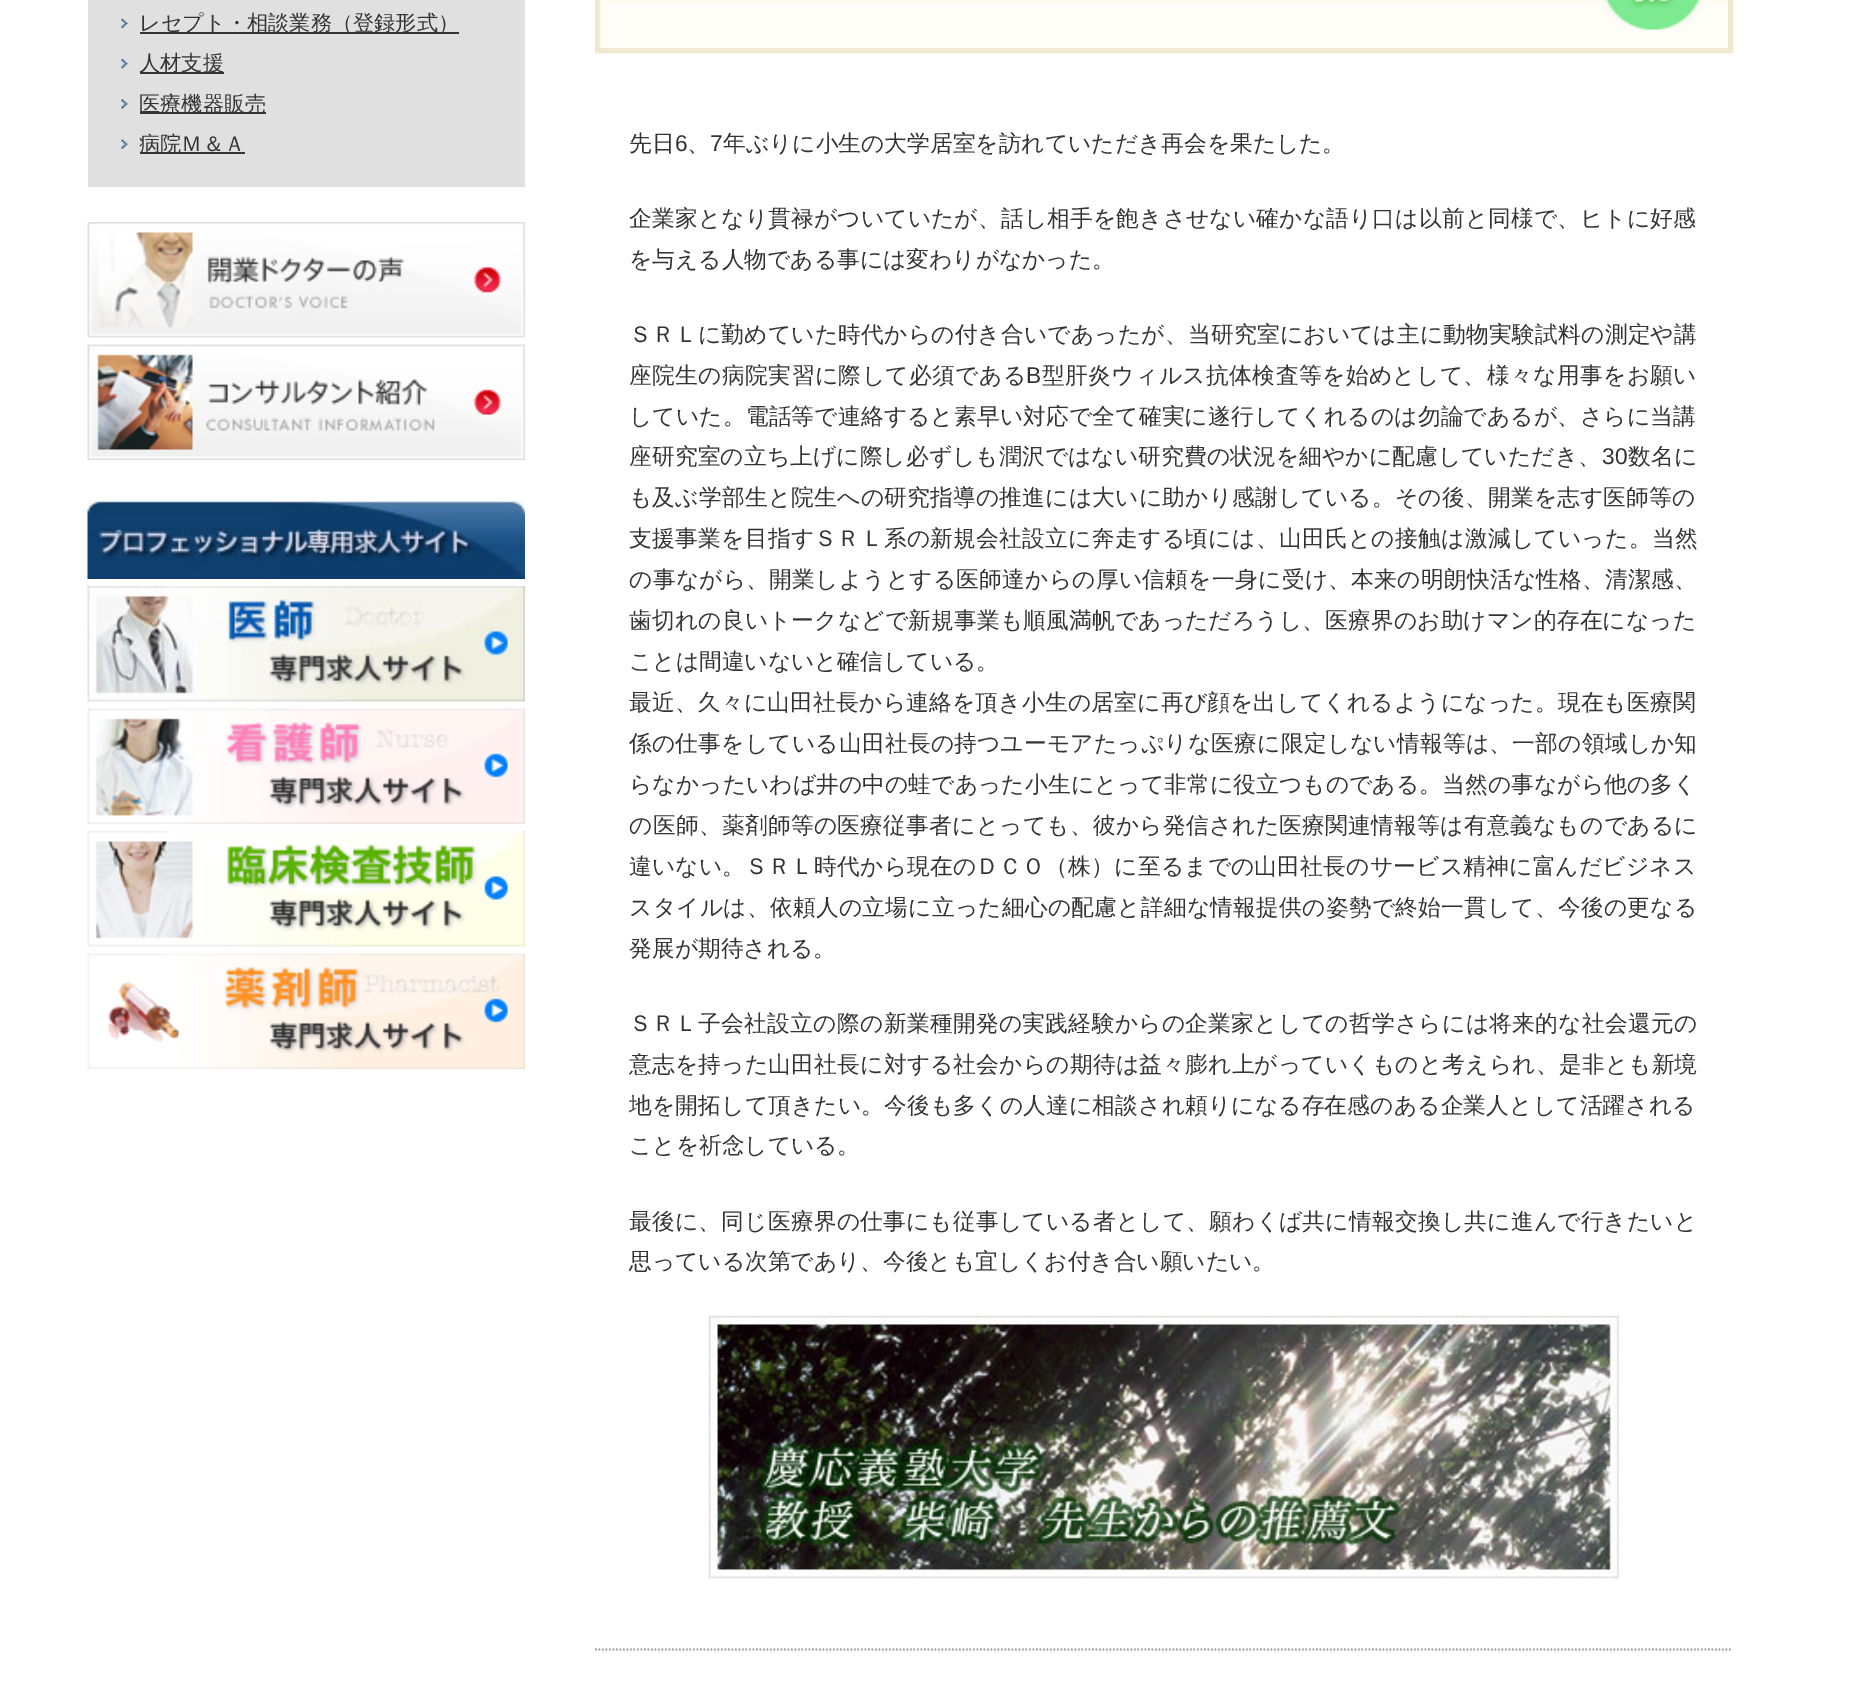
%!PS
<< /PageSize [1853 1697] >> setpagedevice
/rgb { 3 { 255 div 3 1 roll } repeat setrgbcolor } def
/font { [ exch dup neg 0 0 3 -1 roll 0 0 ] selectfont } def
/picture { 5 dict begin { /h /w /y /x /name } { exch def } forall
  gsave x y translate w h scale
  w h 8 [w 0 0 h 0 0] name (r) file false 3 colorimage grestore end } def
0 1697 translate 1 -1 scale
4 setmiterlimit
255 255 255 rgb
0 0 1853 1697 rectfill
224 224 224 rgb
88 0 437 187 rectfill
(img/1.rgb) 121 18 7 11 picture
51 51 51 rgb
140 32 319 2 rectfill
(img/2.rgb) 121 58 7 11 picture
140 72 84 2 rectfill
(img/3.rgb) 121 99 7 10 picture
140 112 126 2 rectfill
(img/4.rgb) 121 139 7 10 picture
140 152 105 2 rectfill
(img/5.rgb) 87 222 438 116 picture
(img/6.rgb) 87 344 438 116 picture
(img/7.rgb) 87 500 438 79 picture
(img/8.rgb) 87 586 438 116 picture
(img/9.rgb) 87 708 438 116 picture
(img/10.rgb) 87 831 438 116 picture
(img/11.rgb) 87 953 438 116 picture
255 254 246 rgb
597.5 -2.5 moveto 1730.5 -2.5 lineto 1730.5 50.5 lineto 597.5 50.5 lineto closepath gsave fill grestore
241 232 209 rgb
5 setlinewidth
stroke
(img/12.rgb) 1601 0 104 30 picture
153 153 153 rgb
1.8 setlinewidth
[1.75 1.75] 0 setdash
595 1649.5 moveto 1732.5 1649.5 lineto stroke
(img/13.rgb) 708 1315 911 264 picture
/WenQuanYiZenHei-Medium 21.2 font
51 51 51 rgb
[
  [(レセプト・相談業務（登録形式）) 139 30]
  [(人材支援) 139 70]
  [(医療機器販売) 139 111]
  [(病院Ｍ＆Ａ) 139 151]
] { aload pop moveto show } forall
/WenQuanYiZenHei-Medium 22.75 font
629 151 moveto (先日) show
/LiberationSans-Regular 22.75 font
675 151 moveto (6) show
710 151 moveto (7) show
/WenQuanYiZenHei-Medium 22.75 font
723 151 moveto (年ぶりに小生の大学居室を訪れていただき再会を果たした。) show
687 151 moveto (、) show
629 226 moveto 0.15 0 (企業家となり貫禄がついていたが、話し相手を飽きさせない確かな語り口は以前と同様で、ヒトに好感) ashow
629 267 moveto (を与える人物である事には変わりがなかった。) show
629 342 moveto 0.2 0 (ＳＲＬに勤めていた時代からの付き合いであったが、当研究室においては主に動物実験試料の測定や講) ashow
629 383 moveto 0.4 0 (座院生の病院実習に際して必須である) ashow
/LiberationSans-Regular 22.75 font
1026 383 moveto 0.4 0 (B) ashow
/WenQuanYiZenHei-Medium 22.75 font
1042 383 moveto 0.4 0 (型肝炎ウィルス抗体検査等を始めとして、様々な用事をお願い) ashow
629 424 moveto 0.15 0 (していた。電話等で連絡すると素早い対応で全て確実に遂行してくれるのは勿論であるが、さらに当講) ashow
629 464 moveto 0.1 0 (座研究室の立ち上げに際し必ずしも潤沢ではない研究費の状況を細やかに配慮していただき、) ashow
/LiberationSans-Regular 22.75 font
1602 464 moveto 0.1 0 (30) ashow
/WenQuanYiZenHei-Medium 22.75 font
1628 464 moveto 0.1 0 (数名に) ashow
629 505 moveto 0.2 0 (も及ぶ学部生と院生への研究指導の推進には大いに助かり感謝している。その後、開業を志す医師等の) ashow
629 546 moveto 0.3 0 (支援事業を目指すＳＲＬ系の新規会社設立に奔走する頃には、山田氏との接触は激減していった。当然) ashow
629 587 moveto 0.25 0 (の事ながら、開業しようとする医師達からの厚い信頼を一身に受け、本来の明朗快活な性格、清潔感、) ashow
629 628 moveto 0.15 0 (歯切れの良いトークなどで新規事業も順風満帆であっただろうし、医療界のお助けマン的存在になった) ashow
629 669 moveto (ことは間違いないと確信している。) show
629 710 moveto 0.2 0 (最近、久々に山田社長から連絡を頂き小生の居室に再び顔を出してくれるようになった。現在も医療関) ashow
629 751 moveto 0.2 0 (係の仕事をしている山田社長の持つユーモアたっぷりな医療に限定しない情報等は、一部の領域しか知) ashow
629 792 moveto 0.1 0 (らなかったいわば井の中の蛙であった小生にとって非常に役立つものである。当然の事ながら他の多く) ashow
629 833 moveto 0.25 0 (の医師、薬剤師等の医療従事者にとっても、彼から発信された医療関連情報等は有意義なものであるに) ashow
629 874 moveto 0.2 0 (違いない。ＳＲＬ時代から現在のＤＣＯ（株）に至るまでの山田社長のサービス精神に富んだビジネス) ashow
629 915 moveto 0.25 0 (スタイルは、依頼人の立場に立った細心の配慮と詳細な情報提供の姿勢で終始一貫して、今後の更なる) ashow
629 956 moveto (発展が期待される。) show
629 1031 moveto 0.3 0 (ＳＲＬ子会社設立の際の新業種開発の実践経験からの企業家としての哲学さらには将来的な社会還元の) ashow
629 1072 moveto 0.2 0 (意志を持った山田社長に対する社会からの期待は益々膨れ上がっていくものと考えられ、是非とも新境) ashow
629 1113 moveto 0.15 0 (地を開拓して頂きたい。今後も多くの人達に相談され頼りになる存在感のある企業人として活躍される) ashow
629 1153 moveto (ことを祈念している。) show
629 1229 moveto 0.2 0 (最後に、同じ医療界の仕事にも従事している者として、願わくば共に情報交換し共に進んで行きたいと) ashow
629 1269 moveto (思っている次第であり、今後とも宜しくお付き合い願いたい。) show
showpage
